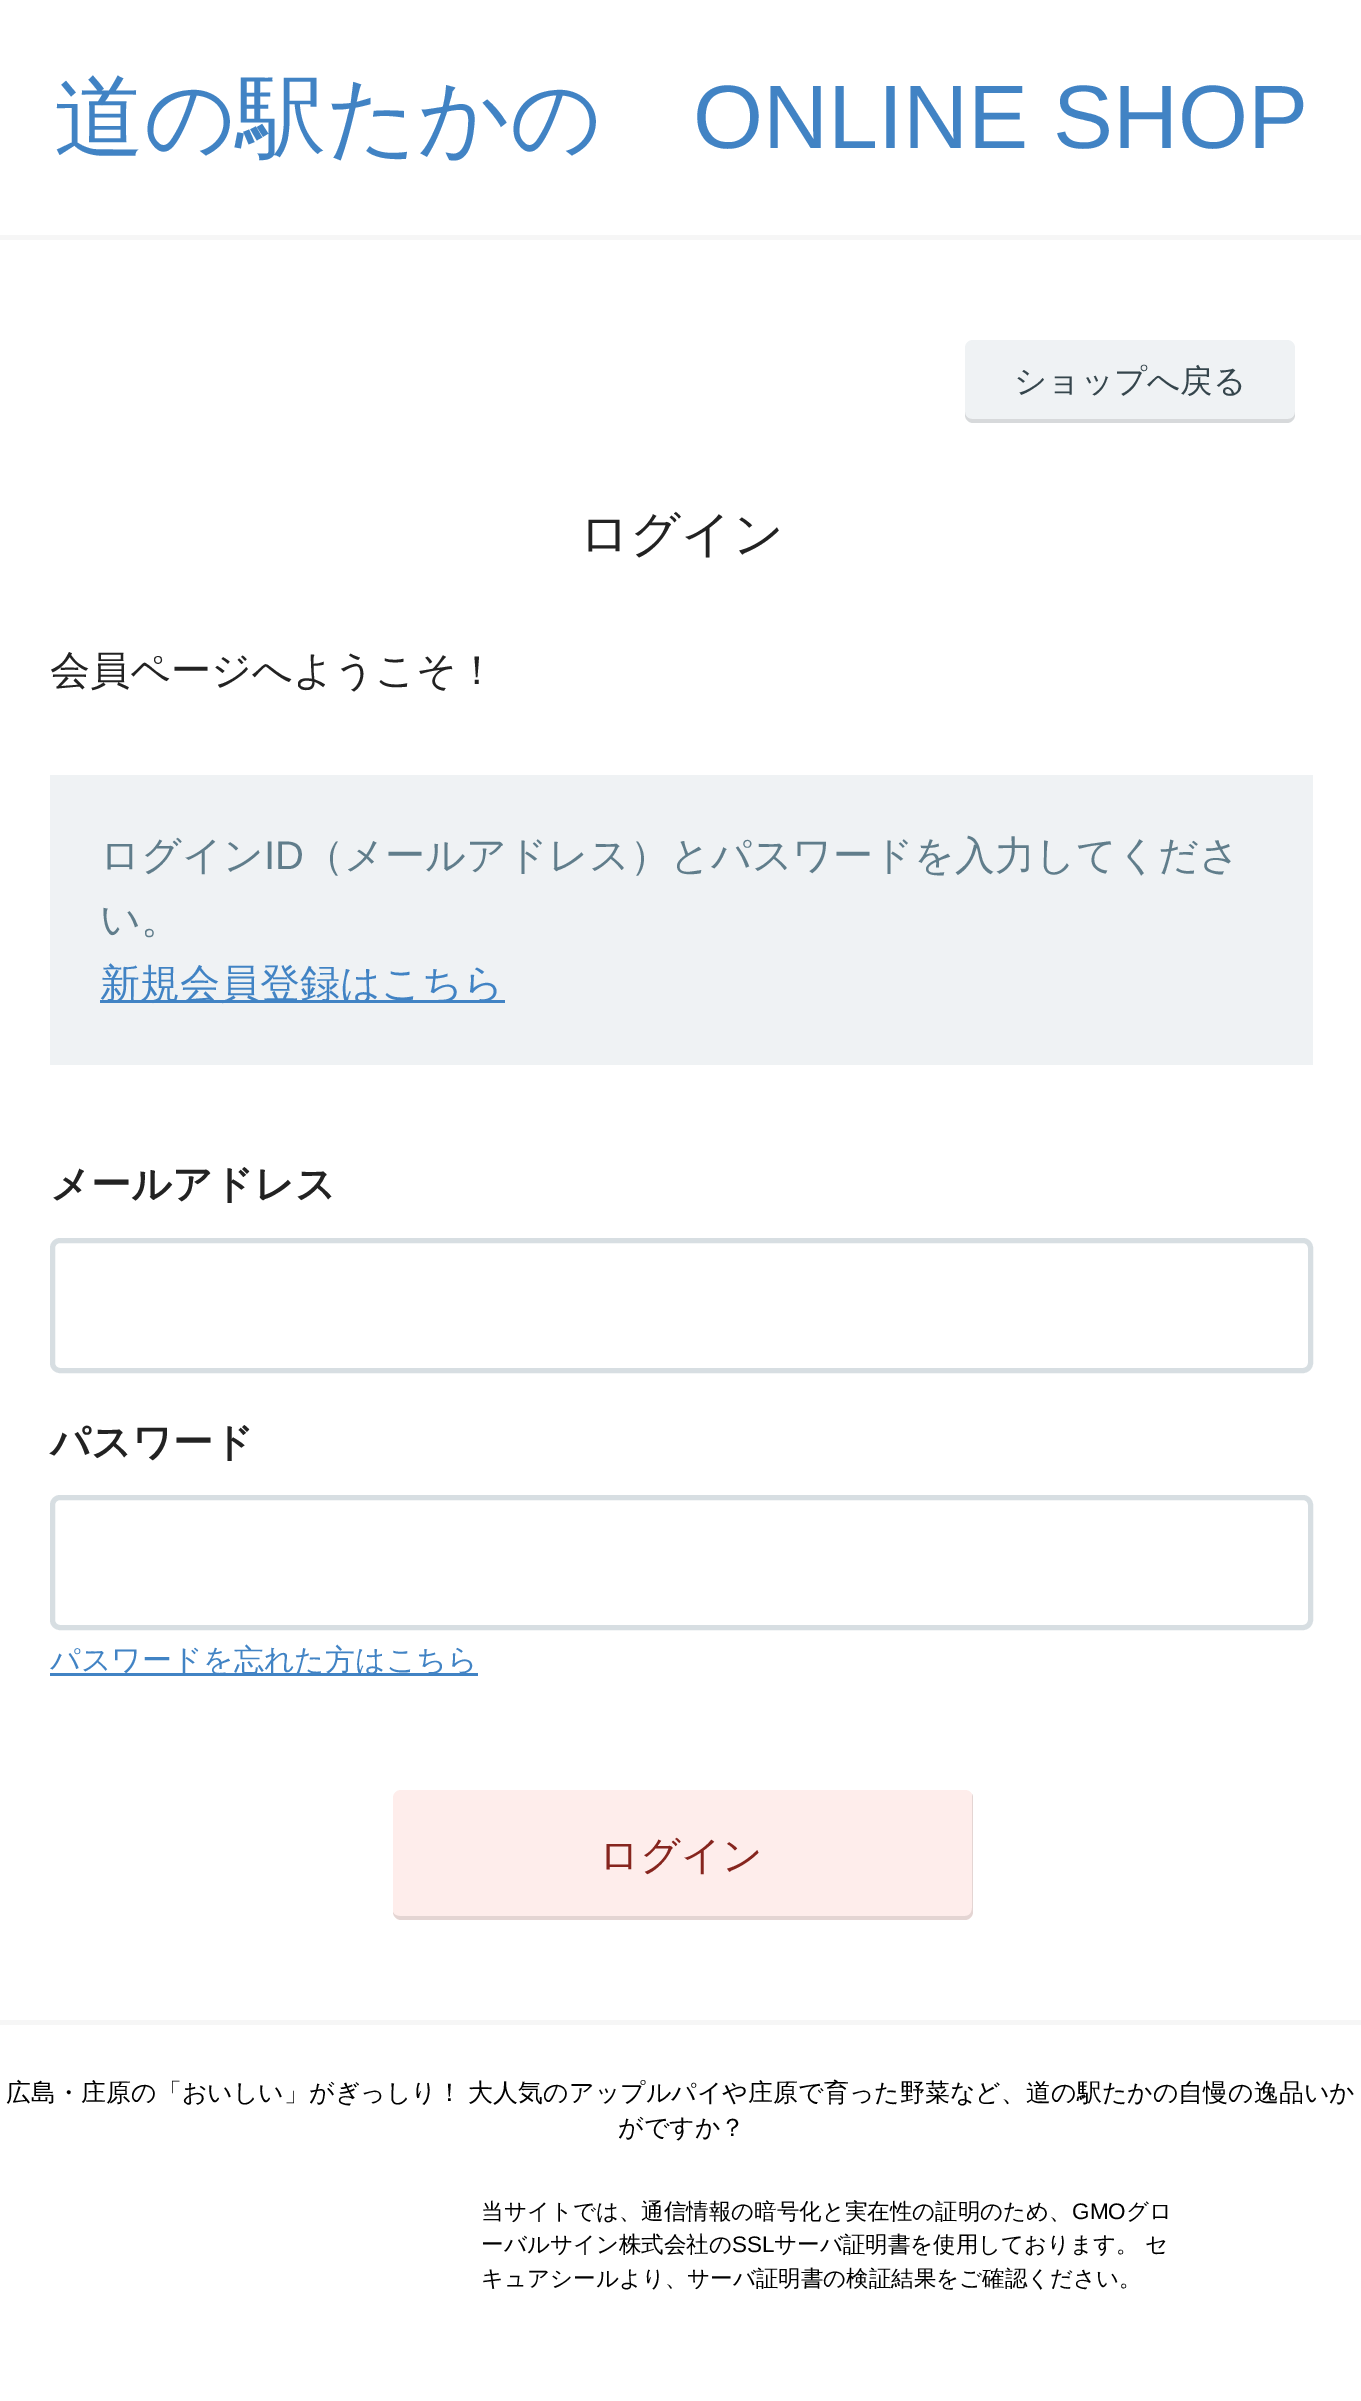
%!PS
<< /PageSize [1361 2401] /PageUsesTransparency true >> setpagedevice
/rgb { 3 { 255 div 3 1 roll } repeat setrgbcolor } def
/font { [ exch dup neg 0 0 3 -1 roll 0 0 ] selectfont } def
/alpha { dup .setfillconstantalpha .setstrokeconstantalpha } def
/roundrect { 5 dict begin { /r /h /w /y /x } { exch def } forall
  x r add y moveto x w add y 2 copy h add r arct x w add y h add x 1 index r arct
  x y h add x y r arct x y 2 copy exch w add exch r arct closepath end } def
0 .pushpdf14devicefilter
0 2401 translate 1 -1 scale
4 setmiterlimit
255 255 255 rgb
0 0 1361 2401 rectfill
246 246 246 rgb
0 235 1361 5 rectfill
0 2020 1361 5 rectfill
239 242 244 rgb
965 340 330 83 8 roundrect fill
0.1 alpha
0 0 0 rgb
965 412 moveto 965 415 lineto 965 419 969 423 973 423 curveto 1287 423 lineto 1291 423 1295 419 1295 415 curveto 1295 412 lineto 1295 416 1292 419 1288 419 curveto 972 419 lineto 968 419 965 416 965 412 curveto closepath fill
1 alpha
239 242 244 rgb
50 775 1263 290 rectfill
65 131 196 rgb
100 1000 405 3 rectfill
215 222 226 rgb
5 setlinewidth
52.5 1240.5 1258 130 7.5 roundrect stroke
52.5 1497.5 1258 130 7.5 roundrect stroke
65 131 196 rgb
50 1673 428 3 rectfill
254 237 235 rgb
393 1790 580 130 8 roundrect fill
0.1 alpha
0 0 0 rgb
393 1912 moveto 393 1916 397 1920 401 1920 curveto 965 1920 lineto 969 1920 973 1916 973 1912 curveto 973 1798 lineto 973 1797 973 1795 972 1794 curveto 972 1908 lineto 972 1913 969 1916 965 1916 curveto 400 1916 lineto 397 1916 394 1915 393 1912 curveto closepath fill
/WenQuanYiZenHei-Medium 90 font
1 alpha
65 131 196 rgb
54 148 moveto (道の駅たかの) show
/LiberationSans-Regular 90 font
693 148 moveto (ONLINE SHOP) show
/WenQuanYiZenHei-Medium 32.5 font
53 69 76 rgb
1014 392 moveto (ショップへ戻る) show
/WenQuanYiZenHei-Medium 50 font
34 34 34 rgb
579 551 moveto (ログイン) show
/WenQuanYiZenHei-Medium 40 font
50 684 moveto (会員ページへようこそ！) show
96 125 139 rgb
100 869 moveto (ログイン) show
/LiberationSans-Regular 40 font
264 869 moveto (ID) show
/WenQuanYiZenHei-Medium 40 font
304 869 moveto (（メールアドレス）とパスワードを入力してくださ) show
100 933 moveto (い。) show
65 131 196 rgb
100 997 moveto (新規会員登録はこちら) show
/WenQuanYiZenHei-Bold 40 font
34 34 34 rgb
50 1198 moveto (メールアドレス) show
50 1456 moveto (パスワード) show
/WenQuanYiZenHei-Medium 30 font
65 131 196 rgb
50 1670 moveto (パスワードを忘れた方はこちら) show
/WenQuanYiZenHei-Medium 40 font
134 37 30 rgb
599 1869 moveto (ログイン) show
/WenQuanYiZenHei-Medium 25 font
0 0 0 rgb
6 2101 moveto -1 0 32 (広島・庄原の「おいしい」がぎっしり！ 大人気のアップルパイや庄原で育った野菜など、道の駅たかの自慢の逸品いか) widthshow
618 2136 moveto (がですか？) show
/WenQuanYiZenHei-Medium 22.5 font
481 2219 moveto (当サイトでは、通信情報の暗号化と実在性の証明のため、) show
/LiberationSans-Regular 22.5 font
1072 2219 moveto (GMO) show
/WenQuanYiZenHei-Medium 22.5 font
1126 2219 moveto (グロ) show
481 2252 moveto (ーバルサイン株式会社の) show
/LiberationSans-Regular 22.5 font
732 2252 moveto (SSL) show
/WenQuanYiZenHei-Medium 22.5 font
774 2252 moveto (サーバ証明書を使用しております。 セ) show
481 2286 moveto (キュアシールより、サーバ証明書の検証結果をご確認ください。) show
.poppdf14devicefilter showpage
